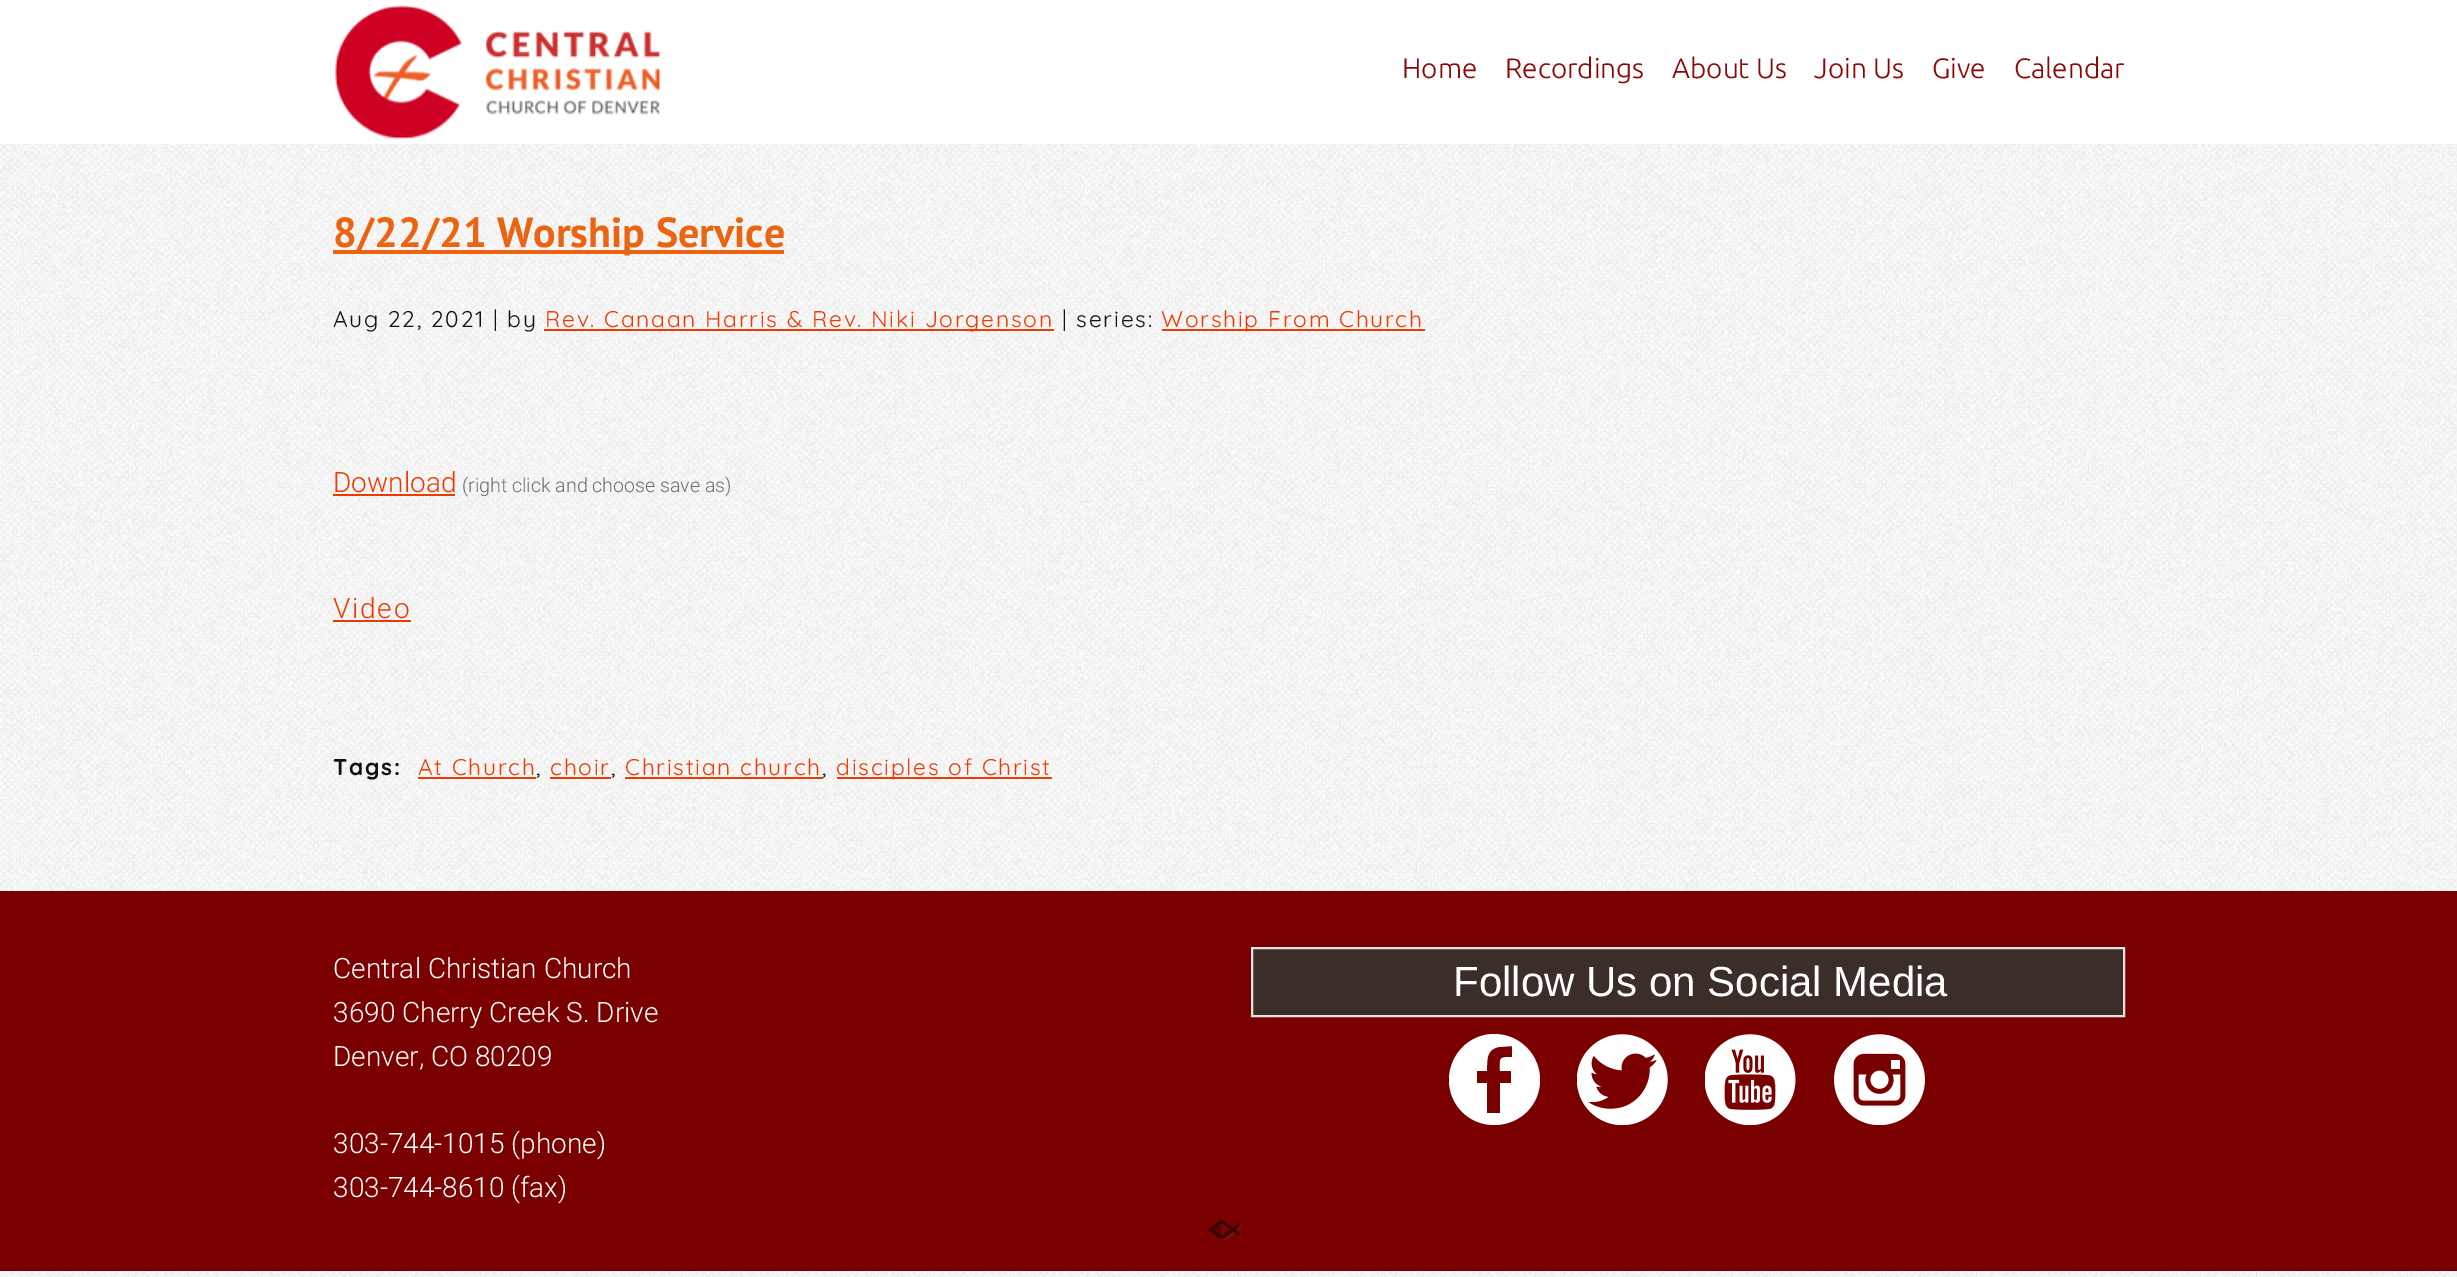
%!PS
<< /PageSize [2457 1277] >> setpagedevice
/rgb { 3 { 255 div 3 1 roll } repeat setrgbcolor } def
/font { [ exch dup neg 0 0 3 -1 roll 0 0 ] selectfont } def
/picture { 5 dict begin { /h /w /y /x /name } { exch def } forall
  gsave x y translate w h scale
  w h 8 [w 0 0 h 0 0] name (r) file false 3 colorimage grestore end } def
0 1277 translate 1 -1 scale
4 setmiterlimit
255 255 255 rgb
0 0 2457 1277 rectfill
(img/1.rgb) 0 144 2457 1133 picture
(img/2.rgb) 335 5 326 134 picture
[
  [333 250 451 4 235 100 17]
  [544 329 510 2 235 59 0]
  [1162 329 263 2 235 59 0]
  [333 494 122 2 235 59 0]
  [333 620 78 2 235 59 0]
  [418 777 118 2 235 59 0]
  [550 777 61 2 235 59 0]
  [625 777 198 2 235 59 0]
  [837 777 215 2 235 59 0]
  [0 891 2457 380 122 0 0]
] { aload pop rgb rectfill } forall
59 45 40 rgb
1252 948 moveto 2124 948 lineto 2124 1016 lineto 1252 1016 lineto closepath gsave fill grestore
227 227 227 rgb
2 setlinewidth
stroke
255 255 255 rgb
1494 1034 moveto 1469 1034 1449 1055 1449 1080 curveto 1449 1105 1469 1125 1494 1125 curveto 1520 1125 1540 1105 1540 1080 curveto 1540 1055 1520 1034 1494 1034 curveto closepath 1512 1057 moveto 1498 1057 1500 1058 1500 1071 curveto 1511 1071 lineto 1511 1083 lineto 1500 1083 lineto 1500 1113 lineto 1487 1113 lineto 1487 1083 lineto 1477 1083 lineto 1477 1071 lineto 1487 1071 lineto 1487 1061 1486 1049 1499 1047 curveto 1512 1046 lineto closepath fill
(img/3.rgb) 1577 1034 91 91 picture
(img/4.rgb) 1705 1034 91 91 picture
(img/5.rgb) 1834 1034 91 91 picture
(img/6.rgb) 1207 1219 35 22 picture
/Ubuntu-Light 28 font
138 7 7 rgb
[
  [(Home) 1402 78]
  [(Recordings) 1505 78]
  [(About Us) 1672 78]
  [(Join Us) 1814 78]
  [(Give) 1932 78]
  [(Calendar) 2014 78]
] { aload pop moveto show } forall
/PTSans-Bold 42 font
235 100 17 rgb
333 247 moveto (8/22/21 Worship Service) show
/Quicksand-Regular 22.75 font
18 18 18 rgb
333 327 moveto 1.75 0 (Aug 22, 2021 | by) ashow
235 59 0 rgb
545 327 moveto 1.75 0 (Rev. Canaan Harris & Rev. Niki Jorgenson) ashow
18 18 18 rgb
1062 327 moveto 1.75 0 (| series:) ashow
235 59 0 rgb
1161 327 moveto 1.75 0 (Worship From Church) ashow
/Roboto-Light 28 font
333 492 moveto (Download) show
/Roboto-Light 19.6 font
109 110 113 rgb
462 492 moveto (\(right click and choose save as\)) show
/Roboto-Light 28 font
235 59 0 rgb
333 618 moveto 1.75 0 (Video) ashow
/Quicksand-Bold 22.75 font
18 18 18 rgb
333 775 moveto 1.75 0 (Tags:) ashow
/Quicksand-Regular 22.75 font
235 59 0 rgb
418 775 moveto 1.75 0 (At Church) ashow
18 18 18 rgb
536 775 moveto 1.75 0 (,) ashow
235 59 0 rgb
550 775 moveto 1.75 0 (choir) ashow
18 18 18 rgb
611 775 moveto 1.75 0 (,) ashow
235 59 0 rgb
625 775 moveto 1.75 0 (Christian church) ashow
18 18 18 rgb
822 775 moveto 1.75 0 (,) ashow
235 59 0 rgb
836 775 moveto 1.75 0 (disciples of Christ) ashow
/Roboto-Light 28 font
255 255 255 rgb
[
  [(Central Christian Church) 333 978]
  [(3690 Cherry Creek S. Drive) 333 1022]
  [(Denver, CO 80209) 333 1066]
  [(303-744-1015 \(phone\)) 333 1153]
  [(303-744-8610 \(fax\)) 333 1197]
] { aload pop moveto show } forall
/LiberationSans-Regular 42 font
1453 996 moveto (Follow Us on Social Media) show
showpage
